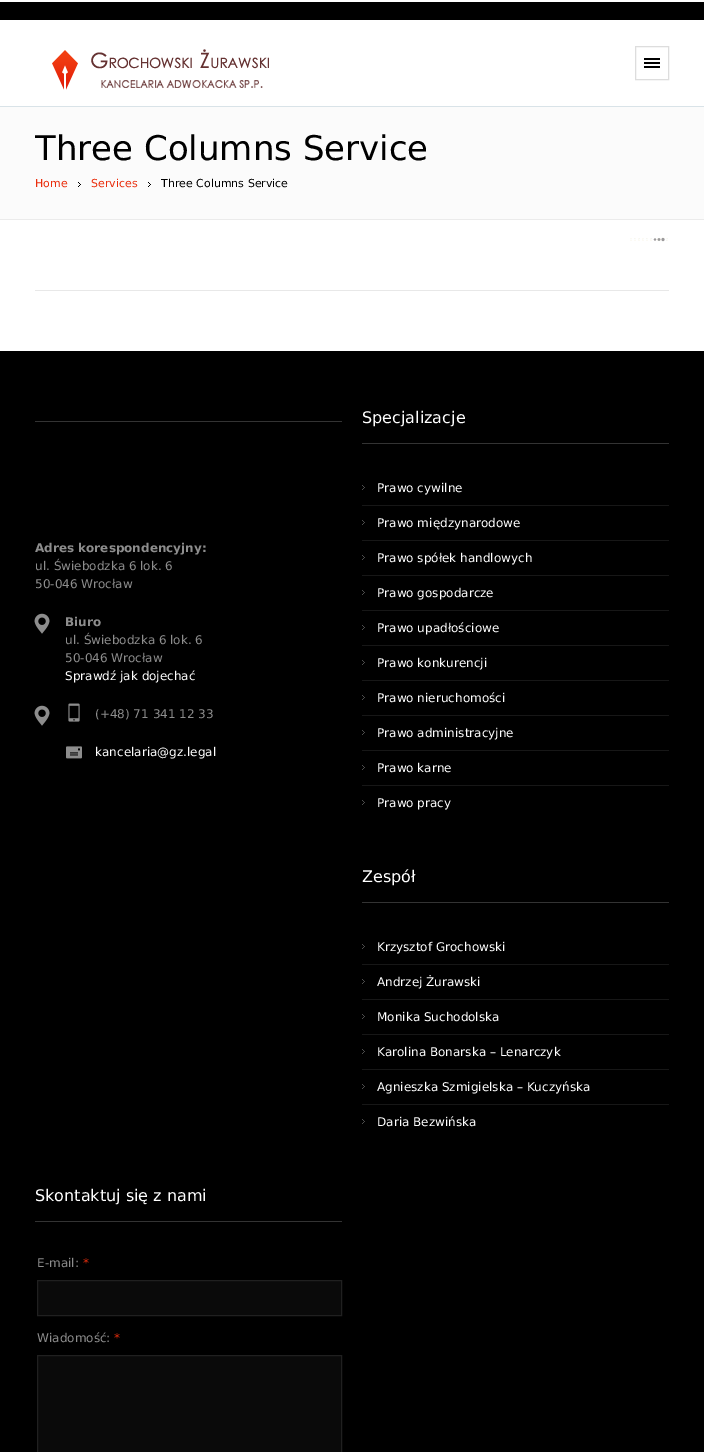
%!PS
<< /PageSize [704 1452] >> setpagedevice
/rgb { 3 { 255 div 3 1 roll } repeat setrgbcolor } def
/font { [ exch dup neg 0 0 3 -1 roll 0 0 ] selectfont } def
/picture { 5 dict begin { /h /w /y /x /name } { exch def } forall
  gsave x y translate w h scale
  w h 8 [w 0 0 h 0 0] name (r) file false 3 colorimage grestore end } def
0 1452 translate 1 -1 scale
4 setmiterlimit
255 255 255 rgb
0 0 704 1452 rectfill
0 0 0 rgb
0 2 704 18 rectfill
217 227 232 rgb
0 106 704 1 rectfill
(img/1.rgb) 52 49 217 41 picture
221 221 221 rgb
635.5 46.5 33 33 rectstroke
[
  [644 58 16 2 0 0 0]
  [644 62 16 2 0 0 0]
  [644 66 16 2 0 0 0]
  [0 107 704 112 251 251 251]
  [78 182 1 1 0 0 0]
  [78 186 1 1 0 0 0]
  [79 183 1 1 0 0 0]
  [79 185 1 1 0 0 0]
  [80 184 1 1 0 0 0]
  [148 182 1 1 0 0 0]
  [148 186 1 1 0 0 0]
  [149 183 1 1 0 0 0]
  [149 185 1 1 0 0 0]
  [150 184 1 1 0 0 0]
  [0 219 704 1 235 235 235]
] { aload pop rgb rectfill } forall
(img/2.rgb) 630 237 38 5 picture
[
  [35 290 634 1 232 232 232]
  [0 351 704 1101 0 0 0]
  [35 421 307 1 51 51 51]
] { aload pop rgb rectfill } forall
(img/3.rgb) 34 613 16 21 picture
(img/3.rgb) 34 705 16 21 picture
(img/4.rgb) 68 703 12 19 picture
(img/5.rgb) 66 746 16 13 picture
362 443 307 1 rectfill
(img/6.rgb) 362 485 3 5 picture
(img/6.rgb) 362 520 3 5 picture
23 23 23 rgb
362 505 307 1 rectfill
(img/6.rgb) 362 555 3 5 picture
362 540 307 1 rectfill
(img/6.rgb) 362 590 3 5 picture
362 575 307 1 rectfill
(img/6.rgb) 362 625 3 5 picture
362 610 307 1 rectfill
(img/6.rgb) 362 660 3 5 picture
362 645 307 1 rectfill
(img/6.rgb) 362 695 3 5 picture
362 680 307 1 rectfill
(img/6.rgb) 362 730 3 5 picture
362 715 307 1 rectfill
(img/6.rgb) 362 765 3 5 picture
362 750 307 1 rectfill
(img/6.rgb) 362 800 3 5 picture
362 785 307 1 rectfill
51 51 51 rgb
362 902 307 1 rectfill
(img/6.rgb) 362 944 3 5 picture
(img/6.rgb) 362 979 3 5 picture
23 23 23 rgb
362 964 307 1 rectfill
(img/6.rgb) 362 1014 3 5 picture
362 999 307 1 rectfill
(img/6.rgb) 362 1049 3 5 picture
362 1034 307 1 rectfill
(img/6.rgb) 362 1084 3 5 picture
362 1069 307 1 rectfill
(img/6.rgb) 362 1119 3 5 picture
362 1104 307 1 rectfill
51 51 51 rgb
35 1221 307 1 rectfill
10 10 10 rgb
37.5 1280.5 moveto 341.5 1280.5 lineto 341.5 1315.5 lineto 37.5 1315.5 lineto closepath gsave fill grestore
32 32 32 rgb
stroke
10 10 10 rgb
37.5 1355.5 moveto 341.5 1355.5 lineto 341.5 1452.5 lineto 37.5 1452.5 lineto closepath gsave fill grestore
32 32 32 rgb
stroke
/DejaVuSans-Regular 34 font
0 0 0 rgb
35 160 moveto (Three Columns Service) show
/DejaVuSans-Regular 11 font
234 46 13 rgb
35 187 moveto (Home) show
91 187 moveto (Services) show
0 0 0 rgb
161 187 moveto (Three Columns Service) show
/DejaVuSans-Bold 12 font
141 141 141 rgb
35 552 moveto (Adres korespondencyjny:) show
/DejaVuSans-Regular 12 font
35 570 moveto (ul. Świebodzka 6 lok. 6) show
35 588 moveto (50-046 Wrocław) show
/DejaVuSans-Bold 12 font
65 626 moveto (Biuro) show
/DejaVuSans-Regular 12 font
65 644 moveto (ul. Świebodzka 6 lok. 6) show
65 662 moveto (50-046 Wrocław) show
255 255 255 rgb
65 680 moveto (Sprawdź jak dojechać) show
141 141 141 rgb
95 718 moveto (\(+48\) 71 341 12 33) show
255 255 255 rgb
95 756 moveto (kancelaria@gz.legal) show
/DejaVuSans-Regular 16 font
362 423 moveto (Specjalizacje) show
/DejaVuSans-Regular 12 font
[
  [(Prawo cywilne) 377 492]
  [(Prawo międzynarodowe) 377 527]
  [(Prawo spółek handlowych) 377 562]
  [(Prawo gospodarcze) 377 597]
  [(Prawo upadłościowe) 377 632]
  [(Prawo konkurencji) 377 667]
  [(Prawo nieruchomości) 377 702]
  [(Prawo administracyjne) 377 737]
  [(Prawo karne) 377 772]
  [(Prawo pracy) 377 807]
] { aload pop moveto show } forall
/DejaVuSans-Regular 16 font
362 882 moveto (Zespół) show
/DejaVuSans-Regular 12 font
[
  [(Krzysztof Grochowski) 377 951]
  [(Andrzej Żurawski) 377 986]
  [(Monika Suchodolska) 377 1021]
  [(Karolina Bonarska – Lenarczyk) 377 1056]
  [(Agnieszka Szmigielska – Kuczyńska) 377 1091]
  [(Daria Bezwińska) 377 1126]
] { aload pop moveto show } forall
/DejaVuSans-Regular 16 font
35 1201 moveto (Skontaktuj się z nami) show
/DejaVuSans-Regular 12 font
141 141 141 rgb
37 1267 moveto (E-mail:) show
234 46 13 rgb
83 1267 moveto (*) show
141 141 141 rgb
37 1342 moveto (Wiadomość:) show
234 46 13 rgb
114 1342 moveto (*) show
showpage
